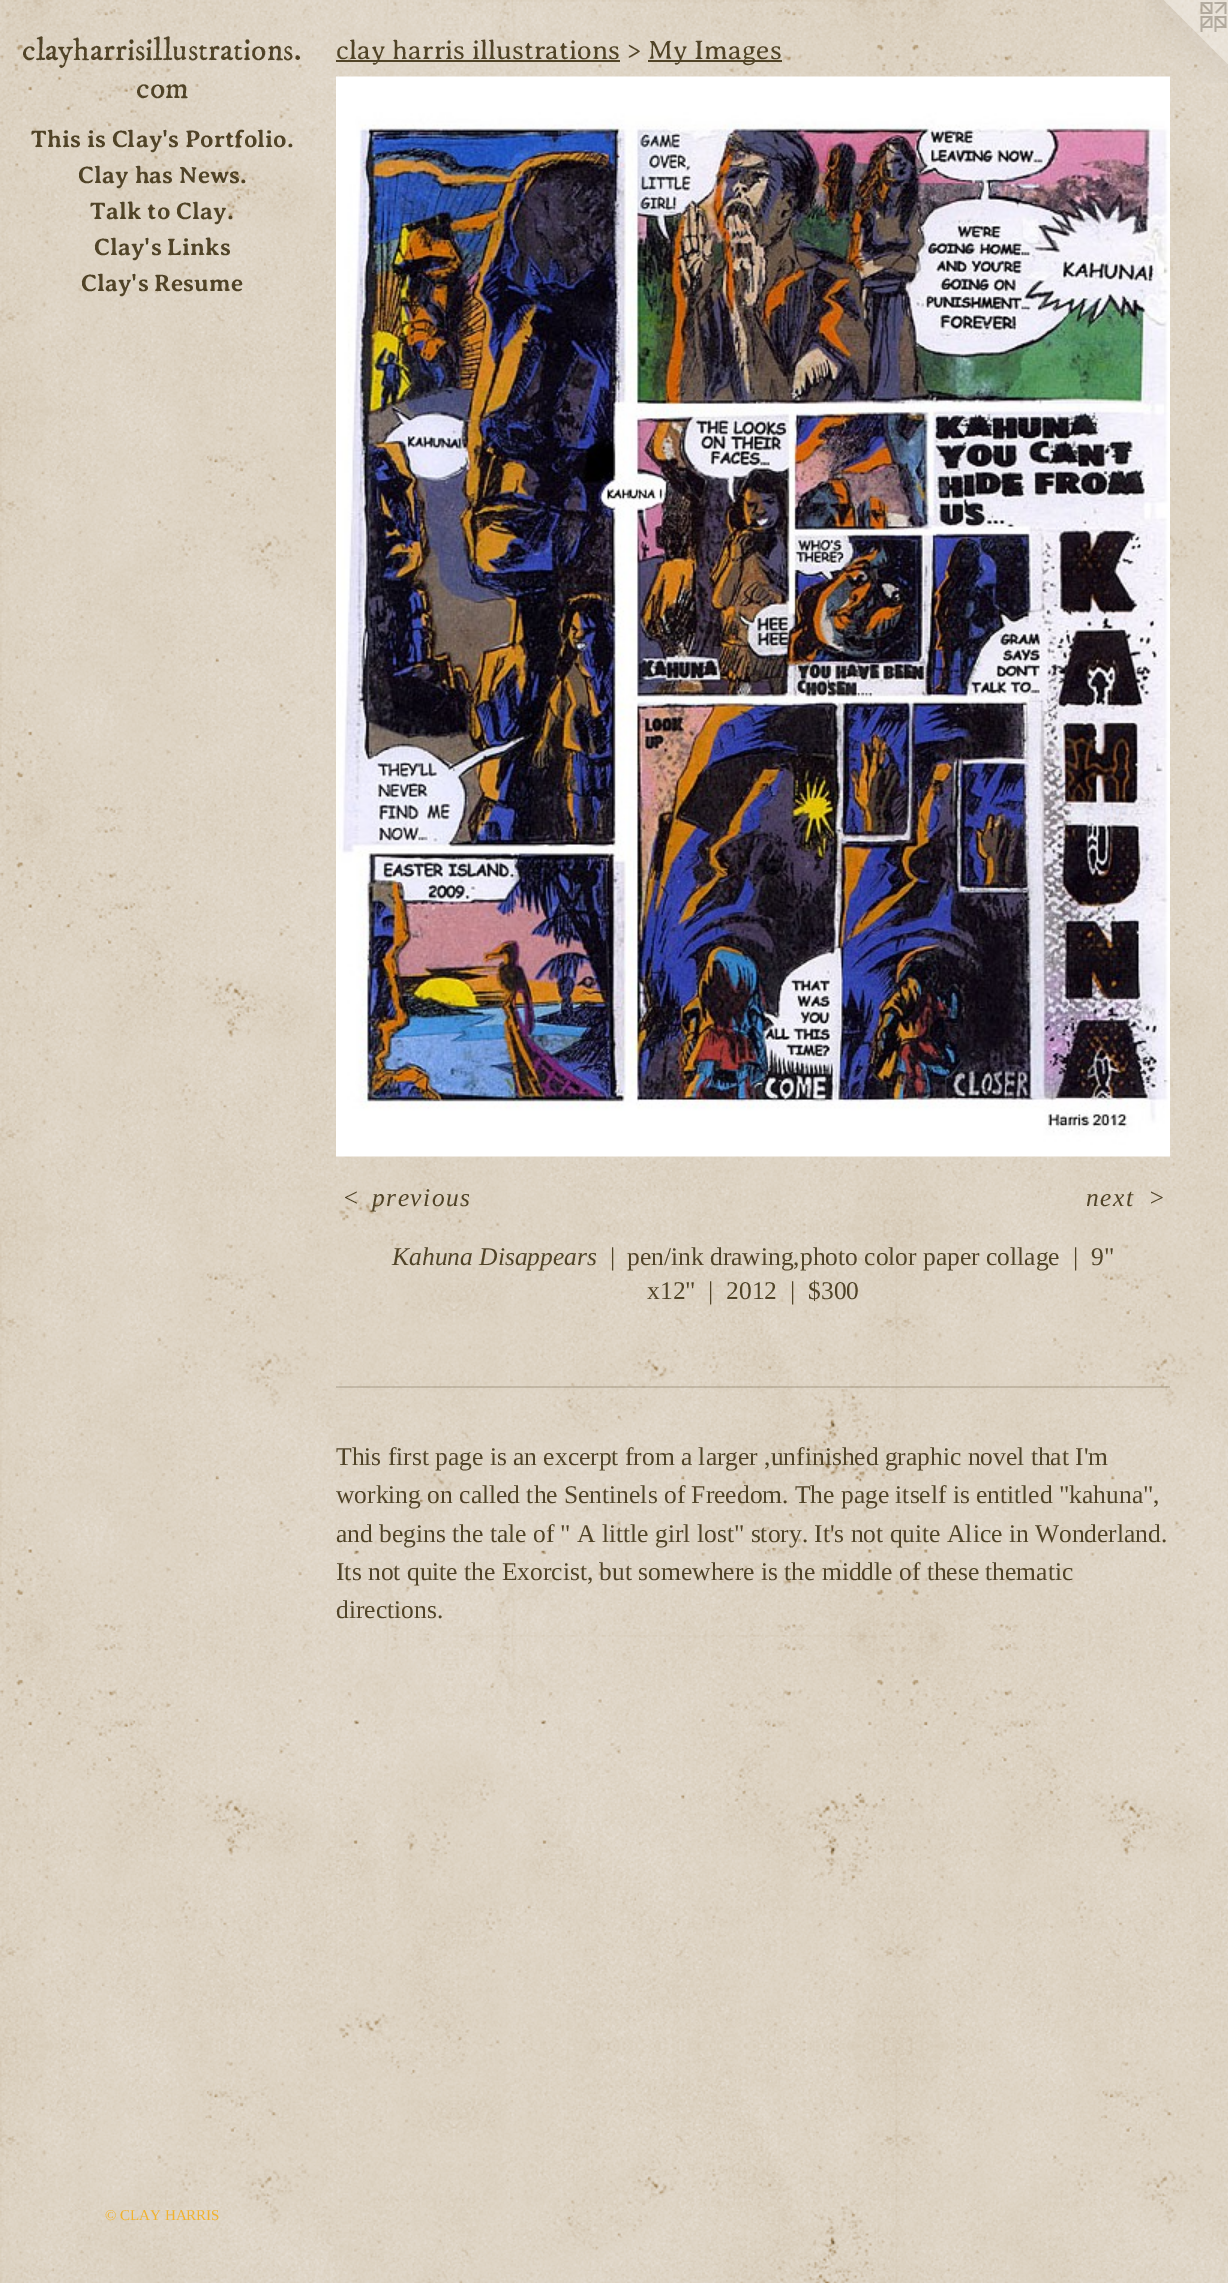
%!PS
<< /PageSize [1228 2283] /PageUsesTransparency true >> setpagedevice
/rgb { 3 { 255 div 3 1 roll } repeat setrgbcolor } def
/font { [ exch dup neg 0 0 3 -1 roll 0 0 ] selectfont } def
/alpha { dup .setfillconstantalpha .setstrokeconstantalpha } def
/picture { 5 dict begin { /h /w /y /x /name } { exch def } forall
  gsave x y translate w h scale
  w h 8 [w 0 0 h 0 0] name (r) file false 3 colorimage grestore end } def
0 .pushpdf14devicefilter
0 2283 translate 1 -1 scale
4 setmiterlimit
255 255 255 rgb
0 0 1228 2283 rectfill
(img/1.rgb) 0 0 1228 2283 picture
80 67 39 rgb
336 60 284 2 rectfill
648 60 134 2 rectfill
(img/3.rgb) 1145 0 83 83 picture
(img/2.rgb) 336 76 834 1081 picture
0.2 alpha
336 1386 834 2 rectfill
/IMFELLDWPica-Regular 31.5 font
1 alpha
22 60 moveto (clayharrisillustrations.) show
136 98 moveto (com) show
/AveriaSerifLibre-Bold 24 font
[
  [(This is Clay's Portfolio.) 31 147]
  [(Clay has News.) 78 183]
  [(Talk to Clay.) 90 219]
  [(Clay's Links) 94 255]
  [(Clay's Resume) 81 291]
] { aload pop moveto show } forall
/LiberationSerif-Regular 15 font
242 178 43 rgb
105 2220 moveto (© CLAY HARRIS) show
/AveriaSerifLibre-Light 27 font
80 67 39 rgb
336 59 moveto (clay harris illustrations >) show
648 59 moveto (My Images) show
/LiberationSerif-Italic 25.5 font
342 1206 moveto 1.5 0 (<) ashow
372 1206 moveto 1.5 0 (previous) ashow
1086 1206 moveto 1.5 0 (next) ashow
1148 1206 moveto 1.5 0 (>) ashow
392 1265 moveto (Kahuna Disappears) show
/LiberationSerif-Regular 25.5 font
[
  [(|) 610 1265]
  [(pen/ink drawing,photo color paper collage) 627 1265]
  [(|) 1073 1265]
  [(9") 1091 1265]
  [(x12") 647 1299]
  [(|) 708 1299]
  [(2012) 726 1299]
  [(|) 790 1299]
  [($300) 808 1299]
  [(This first page is an excerpt from a larger ,unfinished graphic novel that I'm) 336 1465]
  [(working on called the Sentinels of Freedom. The page itself is entitled "kahuna",) 336 1503]
  [(and begins the tale of " A little girl lost" story. It's not quite Alice in Wonderland.) 336 1542]
  [(Its not quite the Exorcist, but somewhere is the middle of these thematic) 336 1580]
  [(directions.) 336 1618]
] { aload pop moveto show } forall
.poppdf14devicefilter showpage
